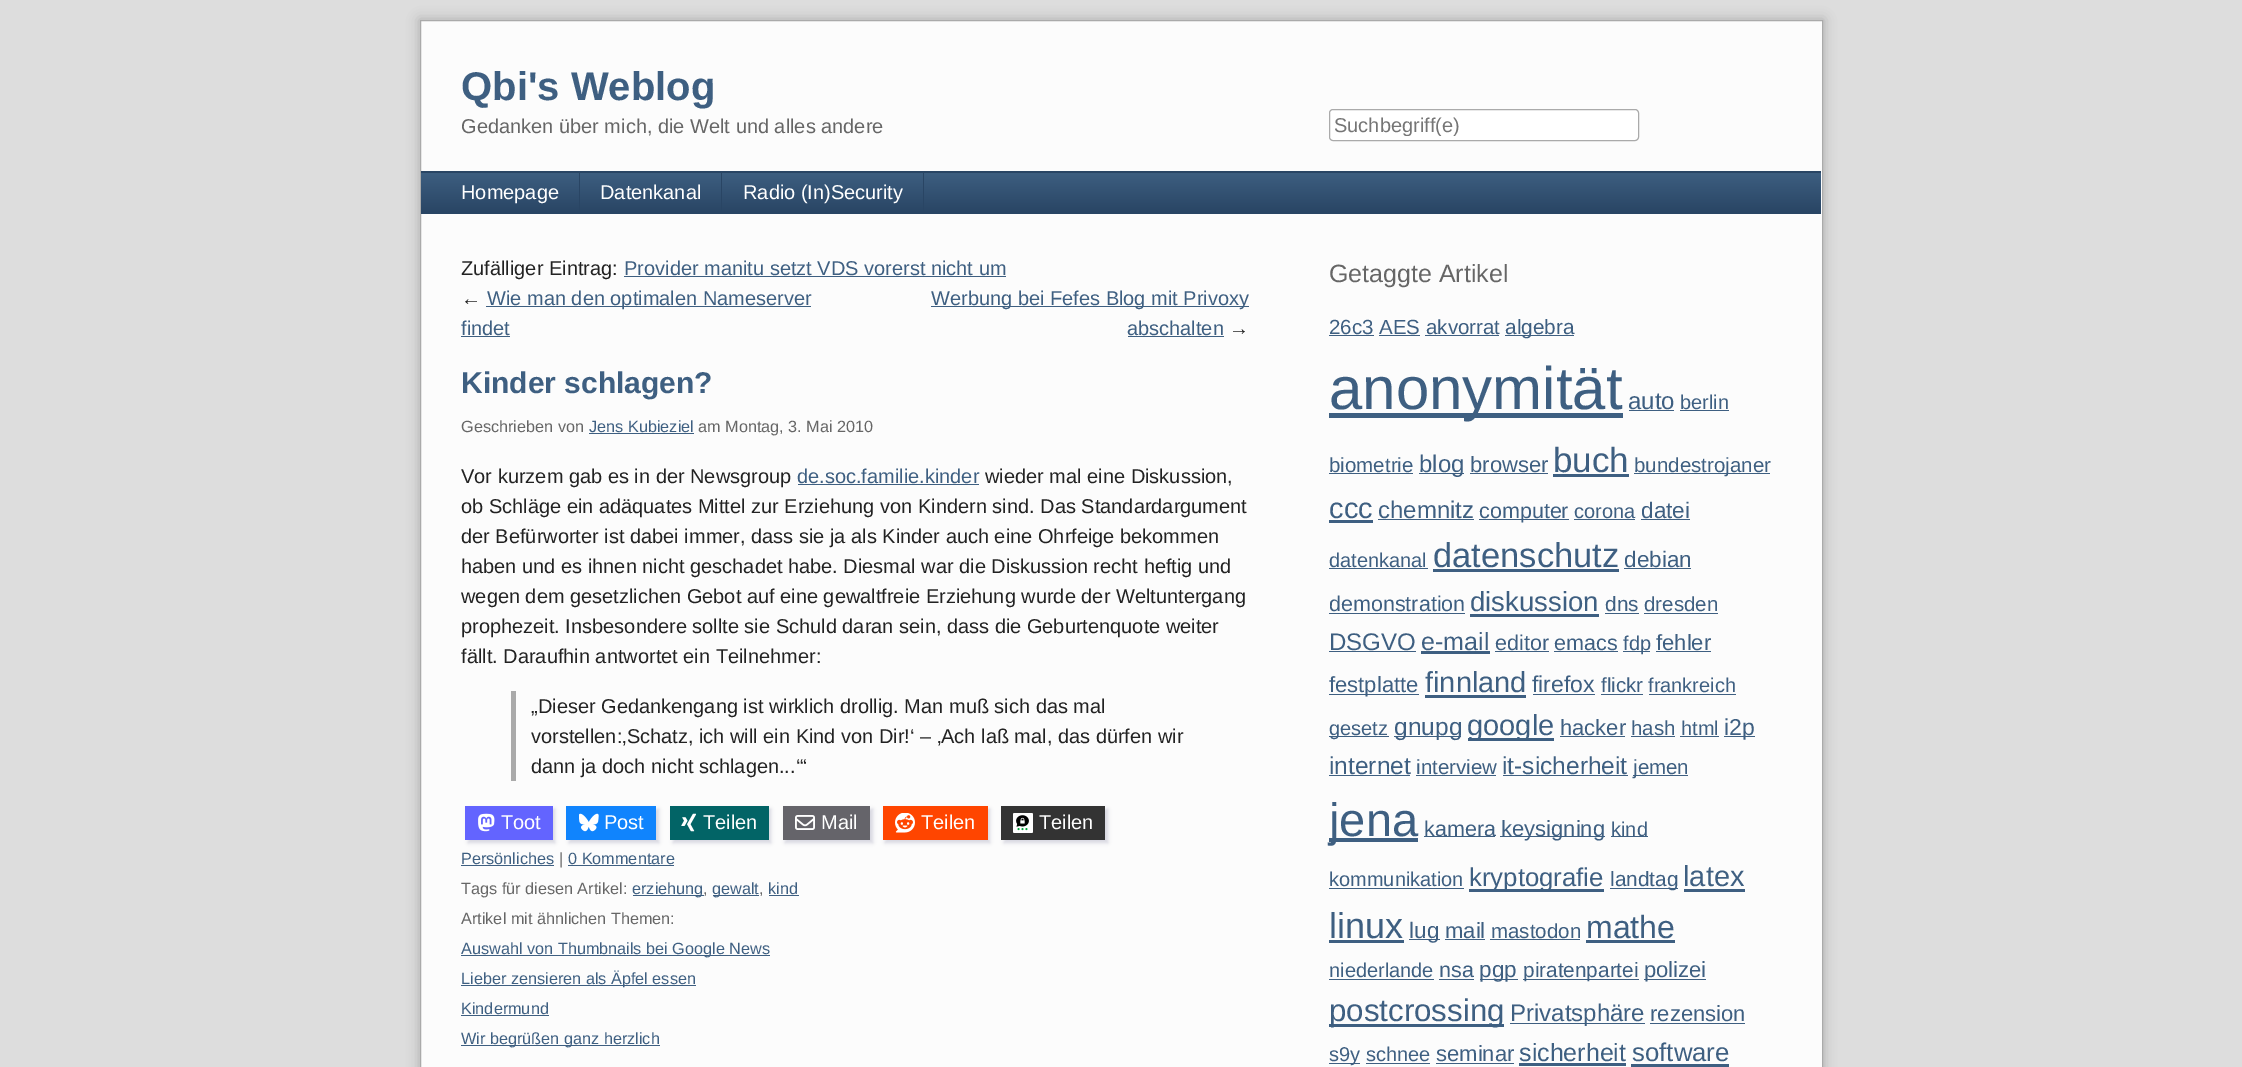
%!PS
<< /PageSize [2242 1067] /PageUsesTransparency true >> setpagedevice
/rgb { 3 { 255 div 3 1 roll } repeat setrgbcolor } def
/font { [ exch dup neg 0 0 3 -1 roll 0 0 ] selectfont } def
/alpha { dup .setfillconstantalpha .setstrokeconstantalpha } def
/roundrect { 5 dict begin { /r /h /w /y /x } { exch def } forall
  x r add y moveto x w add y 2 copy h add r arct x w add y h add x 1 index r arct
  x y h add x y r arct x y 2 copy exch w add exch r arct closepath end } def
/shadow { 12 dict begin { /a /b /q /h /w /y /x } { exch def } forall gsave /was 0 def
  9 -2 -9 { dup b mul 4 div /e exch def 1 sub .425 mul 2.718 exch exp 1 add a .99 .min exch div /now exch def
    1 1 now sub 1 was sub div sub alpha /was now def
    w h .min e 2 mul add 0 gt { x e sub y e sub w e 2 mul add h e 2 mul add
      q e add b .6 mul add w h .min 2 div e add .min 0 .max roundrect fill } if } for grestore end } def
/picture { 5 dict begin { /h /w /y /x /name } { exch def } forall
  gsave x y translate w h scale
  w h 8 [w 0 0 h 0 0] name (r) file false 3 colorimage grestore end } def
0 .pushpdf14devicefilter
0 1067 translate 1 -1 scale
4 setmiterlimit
221 221 221 rgb
0 0 2242 1067 rectfill
0 0 0 rgb
419 19 1405 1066 0 6 0.2 shadow
252 252 252 rgb
420.5 20.5 moveto 1822.5 20.5 lineto 1822.5 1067.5 lineto 420.5 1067.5 lineto closepath gsave fill grestore
170 170 170 rgb
stroke
255 255 255 rgb
1329.5 109.5 309 31 3.5 roundrect gsave fill grestore
170 170 170 rgb
stroke
41 69 100 rgb
421 171 1400 2 rectfill
gsave 421 173 moveto 1821 173 lineto 1821 213 lineto 421 213 lineto closepath clip newpath
<< /ShadingType 2 /ColorSpace /DeviceRGB /Coords [1121 172 1121 213] /Extend [true true] /Function << /FunctionType 2 /Domain [0 1] /C0 [0.243 0.373 0.506] /C1 [0.161 0.271 0.392] /N 1 >> >> shfill grestore
[
  [421 213 1400 1 41 69 100]
  [579 173 1 40 41 69 100]
  [721 173 1 40 41 69 100]
  [923 173 1 40 41 69 100]
  [624 276 382 1 62 95 129]
  [486 306 325 1 62 95 129]
  [461 336 49 1 62 95 129]
  [931 306 318 1 62 95 129]
  [1128 336 96 1 62 95 129]
  [589 433 105 1 62 95 129]
  [798 484 181 1 62 95 129]
  [511 691 5 90 170 170 170]
] { aload pop rgb rectfill } forall
214 214 223 rgb
468 809 87 34 0 2 1 shadow
99 100 255 rgb
465 806 88 34 rectfill
(img/1.rgb) 478 813 17 19 picture
214 214 223 rgb
569 809 90 34 0 2 1 shadow
16 132 253 rgb
566 806 90 34 rectfill
(img/2.rgb) 579 813 20 19 picture
214 214 223 rgb
673 809 98 34 0 2 1 shadow
2 100 102 rgb
670 806 99 34 rectfill
(img/3.rgb) 681 813 15 19 picture
214 214 223 rgb
785 809 88 34 0 2 1 shadow
101 100 106 rgb
783 806 87 34 rectfill
(img/4.rgb) 795 815 20 15 picture
214 214 223 rgb
885 809 105 34 0 2 1 shadow
255 69 0 rgb
883 806 105 34 rectfill
(img/5.rgb) 895 813 20 20 picture
214 214 223 rgb
1004 809 104 34 0 2 1 shadow
51 51 51 rgb
1001 806 104 34 rectfill
(img/6.rgb) 1013 813 20 20 picture
[
  [461 865 93 1 62 95 129]
  [568 865 106 1 62 95 129]
  [633 895 71 1 62 95 129]
  [713 895 46 1 62 95 129]
  [769 895 30 1 62 95 129]
  [461 955 309 1 62 95 129]
  [461 985 235 1 62 95 129]
  [461 1015 88 1 62 95 129]
  [461 1045 199 1 62 95 129]
  [1329 335 45 1 62 95 129]
  [1505 335 69 1 62 95 129]
  [1379 335 41 1 62 95 129]
  [1425 335 74 1 62 95 129]
  [1329 413 294 5 62 95 129]
  [1629 410 45 1 62 95 129]
  [1680 410 49 1 62 95 129]
  [1329 473 84 1 62 95 129]
  [1419 473 45 1 62 95 129]
  [1470 473 78 1 62 95 129]
  [1553 474 76 3 62 95 129]
  [1634 473 136 1 62 95 129]
  [1329 520 44 3 62 95 129]
  [1378 519 96 1 62 95 129]
  [1479 519 90 1 62 95 129]
  [1574 519 61 1 62 95 129]
  [1641 519 49 1 62 95 129]
  [1329 568 99 1 62 95 129]
  [1433 569 186 3 62 95 129]
  [1624 568 67 1 62 95 129]
  [1329 613 136 1 62 95 129]
  [1470 614 129 3 62 95 129]
  [1605 613 34 1 62 95 129]
  [1644 613 74 1 62 95 129]
  [1329 651 87 1 62 95 129]
  [1421 651 69 3 62 95 129]
  [1495 651 54 1 62 95 129]
  [1554 651 64 1 62 95 129]
  [1623 651 27 1 62 95 129]
  [1656 651 55 1 62 95 129]
  [1329 694 90 1 62 95 129]
  [1425 695 101 3 62 95 129]
  [1533 694 62 1 62 95 129]
  [1601 694 42 1 62 95 129]
  [1649 694 87 1 62 95 129]
  [1329 736 60 1 62 95 129]
  [1394 736 67 1 62 95 129]
  [1468 738 86 3 62 95 129]
  [1560 736 65 1 62 95 129]
  [1631 736 44 1 62 95 129]
  [1680 736 39 1 62 95 129]
  [1724 736 31 1 62 95 129]
  [1329 775 81 1 62 95 129]
  [1416 775 80 1 62 95 129]
  [1503 775 125 1 62 95 129]
  [1633 775 55 1 62 95 129]
  [1329 838 89 4 62 95 129]
  [1424 836 71 1 62 95 129]
  [1500 836 105 1 62 95 129]
  [1611 836 37 1 62 95 129]
  [1329 888 135 1 62 95 129]
  [1469 889 135 3 62 95 129]
  [1610 888 68 1 62 95 129]
  [1684 889 61 3 62 95 129]
  [1329 940 75 3 62 95 129]
  [1409 939 31 1 62 95 129]
  [1445 939 40 1 62 95 129]
  [1490 939 90 1 62 95 129]
  [1586 940 89 3 62 95 129]
  [1329 979 105 1 62 95 129]
  [1439 979 35 1 62 95 129]
  [1480 979 38 1 62 95 129]
  [1523 979 116 1 62 95 129]
  [1644 979 62 1 62 95 129]
  [1329 1024 175 3 62 95 129]
  [1510 1023 135 1 62 95 129]
  [1650 1023 95 1 62 95 129]
  [1329 1063 31 1 62 95 129]
  [1436 1063 78 1 62 95 129]
  [1519 1063 107 3 62 95 129]
  [1631 1064 98 3 62 95 129]
  [1366 1063 64 1 62 95 129]
] { aload pop rgb rectfill } forall
/LiberationSans-Bold 40 font
461 100 moveto (Qbi's Weblog) show
/LiberationSans-Regular 20 font
102 102 102 rgb
461 133 moveto (Gedanken über mich, die Welt und alles andere) show
gsave
1334 114 281 22 rectclip
117 117 117 rgb
1334 132 moveto (Suchbegriff\(e\)) show
grestore
255 255 255 rgb
[
  [(Homepage) 461 199]
  [(Datenkanal) 600 199]
  [(Radio \(In\)Security) 743 199]
] { aload pop moveto show } forall
34 34 34 rgb
461 275 moveto (Zufälliger Eintrag:) show
62 95 129 rgb
624 275 moveto (Provider manitu setzt VDS vorerst nicht um) show
34 34 34 rgb
461 305 moveto (←) show
62 95 129 rgb
[
  [(Wie man den optimalen Nameserver) 487 305]
  [(findet) 461 335]
  [(Werbung bei Fefes Blog mit Privoxy) 931 305]
  [(abschalten) 1127 335]
] { aload pop moveto show } forall
34 34 34 rgb
1229 335 moveto (→) show
/LiberationSans-Bold 30 font
62 95 129 rgb
461 393 moveto (Kinder schlagen?) show
/LiberationSans-Regular 16.25 font
102 102 102 rgb
461 432 moveto (Geschrieben von) show
62 95 129 rgb
589 432 moveto (Jens Kubieziel) show
102 102 102 rgb
698 432 moveto (am Montag, 3. Mai 2010) show
/LiberationSans-Regular 20 font
34 34 34 rgb
461 483 moveto (Vor kurzem gab es in der Newsgroup) show
62 95 129 rgb
797 483 moveto (de.soc.familie.kinder) show
34 34 34 rgb
[
  [(wieder mal eine Diskussion,) 985 483]
  [(ob Schläge ein adäquates Mittel zur Erziehung von Kindern sind. Das Standardargument) 461 513]
  [(der Befürworter ist dabei immer, dass sie ja als Kinder auch eine Ohrfeige bekommen) 461 543]
  [(haben und es ihnen nicht geschadet habe. Diesmal war die Diskussion recht heftig und) 461 573]
  [(wegen dem gesetzlichen Gebot auf eine gewaltfreie Erziehung wurde der Weltuntergang) 461 603]
  [(prophezeit. Insbesondere sollte sie Schuld daran sein, dass die Geburtenquote weiter) 461 633]
  [(fällt. Daraufhin antwortet ein Teilnehmer:) 461 663]
  [(„Dieser Gedankengang ist wirklich drollig. Man muß sich das mal) 531 713]
  [(vorstellen:‚Schatz, ich will ein Kind von Dir!‘ – ‚Ach laß mal, das dürfen wir) 531 743]
  [(dann ja doch nicht schlagen...‘“) 531 773]
] { aload pop moveto show } forall
255 255 255 rgb
[
  [(Toot) 501 829]
  [(Post) 604 829]
  [(Teilen) 703 829]
  [(Mail) 821 829]
  [(Teilen) 921 829]
  [(Teilen) 1039 829]
] { aload pop moveto show } forall
/LiberationSans-Regular 16.25 font
62 95 129 rgb
461 864 moveto (Persönliches) show
102 102 102 rgb
559 864 moveto (|) show
62 95 129 rgb
568 864 moveto (0 Kommentare) show
102 102 102 rgb
461 894 moveto (Tags für diesen Artikel:) show
62 95 129 rgb
632 894 moveto (erziehung) show
102 102 102 rgb
703 894 moveto (,) show
62 95 129 rgb
712 894 moveto (gewalt) show
102 102 102 rgb
759 894 moveto (,) show
62 95 129 rgb
768 894 moveto (kind) show
102 102 102 rgb
461 924 moveto (Artikel mit ähnlichen Themen:) show
62 95 129 rgb
[
  [(Auswahl von Thumbnails bei Google News) 461 954]
  [(Lieber zensieren als Äpfel essen) 461 984]
  [(Kindermund) 461 1014]
  [(Wir begrüßen ganz herzlich) 461 1044]
] { aload pop moveto show } forall
/LiberationSans-Regular 25 font
102 102 102 rgb
1329 282 moveto (Getaggte Artikel) show
/LiberationSans-Regular 20.5 font
62 95 129 rgb
1329 334 moveto (26c3 AES akvorrat) show
/LiberationSans-Regular 20.75 font
1505 334 moveto (algebra) show
/LiberationSans-Regular 60 font
1329 409 moveto (anonymität) show
/LiberationSans-Regular 24 font
1628 409 moveto (auto) show
/LiberationSans-Regular 20 font
1680 409 moveto (berlin) show
/LiberationSans-Regular 20.5 font
1329 472 moveto (biometrie) show
/LiberationSans-Regular 24 font
1419 472 moveto (blog) show
/LiberationSans-Regular 22 font
1470 472 moveto (browser) show
/LiberationSans-Regular 35 font
1553 472 moveto (buch) show
/LiberationSans-Regular 20.5 font
1634 472 moveto (bundestrojaner) show
/LiberationSans-Regular 29 font
1329 518 moveto (ccc) show
/LiberationSans-Regular 24 font
1378 518 moveto (chemnitz) show
/LiberationSans-Regular 21.5 font
1479 518 moveto (computer) show
/LiberationSans-Regular 20 font
1574 518 moveto (corona) show
/LiberationSans-Regular 22.5 font
1641 518 moveto (datei) show
/LiberationSans-Regular 20 font
1329 567 moveto (datenkanal) show
/LiberationSans-Regular 34.5 font
1433 567 moveto (datenschutz) show
/LiberationSans-Regular 22.5 font
1624 567 moveto (debian) show
/LiberationSans-Regular 21.5 font
1329 611 moveto (demonstration) show
/LiberationSans-Regular 27.5 font
1470 611 moveto (diskussion) show
/LiberationSans-Regular 20.75 font
1605 611 moveto (dns) show
/LiberationSans-Regular 20.5 font
1644 611 moveto (dresden) show
/LiberationSans-Regular 24 font
1329 650 moveto (DSGVO) show
/LiberationSans-Regular 25 font
1421 650 moveto (e-mail) show
/LiberationSans-Regular 21.5 font
1495 650 moveto (editor) show
1554 650 moveto (emacs) show
/LiberationSans-Regular 20 font
1623 650 moveto (fdp) show
/LiberationSans-Regular 22 font
1656 650 moveto (fehler) show
1329 692 moveto (festplatte) show
/LiberationSans-Regular 29 font
1425 692 moveto (finnland) show
/LiberationSans-Regular 23 font
1532 692 moveto (firefox) show
/LiberationSans-Regular 20.5 font
1601 692 moveto (flickr) show
/LiberationSans-Regular 20 font
1648 692 moveto (frankreich) show
1329 735 moveto (gesetz) show
/LiberationSans-Regular 24.5 font
1394 735 moveto (gnupg) show
/LiberationSans-Regular 29 font
1467 735 moveto (google) show
/LiberationSans-Regular 22 font
1560 735 moveto (hacker) show
/LiberationSans-Regular 20.5 font
1631 735 moveto (hash) show
/LiberationSans-Regular 20 font
1681 735 moveto (html) show
/LiberationSans-Regular 23 font
1724 735 moveto (i2p) show
/LiberationSans-Regular 24.5 font
1329 774 moveto (internet) show
/LiberationSans-Regular 20.5 font
1416 774 moveto (interview) show
/LiberationSans-Regular 24.5 font
1502 774 moveto (it-sicherheit) show
/LiberationSans-Regular 20.5 font
1633 774 moveto (jemen) show
/LiberationSans-Regular 47 font
1329 836 moveto (jena) show
/LiberationSans-Regular 21.5 font
1424 836 moveto (kamera) show
/LiberationSans-Regular 22 font
1501 836 moveto (keysigning) show
/LiberationSans-Regular 20 font
1611 836 moveto (kind) show
1329 886 moveto (kommunikation) show
/LiberationSans-Regular 25.75 font
1469 886 moveto (kryptografie) show
/LiberationSans-Regular 20.75 font
1610 886 moveto (landtag) show
/LiberationSans-Regular 29 font
1683 886 moveto (latex) show
/LiberationSans-Regular 36 font
1329 938 moveto (linux) show
/LiberationSans-Regular 22.5 font
1409 938 moveto (lug) show
/LiberationSans-Regular 22 font
1445 938 moveto (mail) show
/LiberationSans-Regular 20.5 font
1491 938 moveto (mastodon) show
/LiberationSans-Regular 32 font
1586 938 moveto (mathe) show
/LiberationSans-Regular 20 font
1329 977 moveto (niederlande) show
/LiberationSans-Regular 21.5 font
1439 977 moveto (nsa) show
/LiberationSans-Regular 22.5 font
1479 977 moveto (pgp) show
/LiberationSans-Regular 20.75 font
1523 977 moveto (piratenpartei) show
/LiberationSans-Regular 22 font
1644 977 moveto (polizei) show
/LiberationSans-Regular 31.25 font
1329 1021 moveto (postcrossing) show
/LiberationSans-Regular 24 font
1510 1021 moveto (Privatsphäre) show
/LiberationSans-Regular 22 font
1650 1021 moveto (rezension) show
/LiberationSans-Regular 20 font
1329 1061 moveto (s9y schnee) show
/LiberationSans-Regular 22 font
1436 1061 moveto (seminar) show
/LiberationSans-Regular 25 font
1519 1061 moveto (sicherheit) show
/LiberationSans-Regular 25.75 font
1632 1061 moveto (software) show
.poppdf14devicefilter showpage
